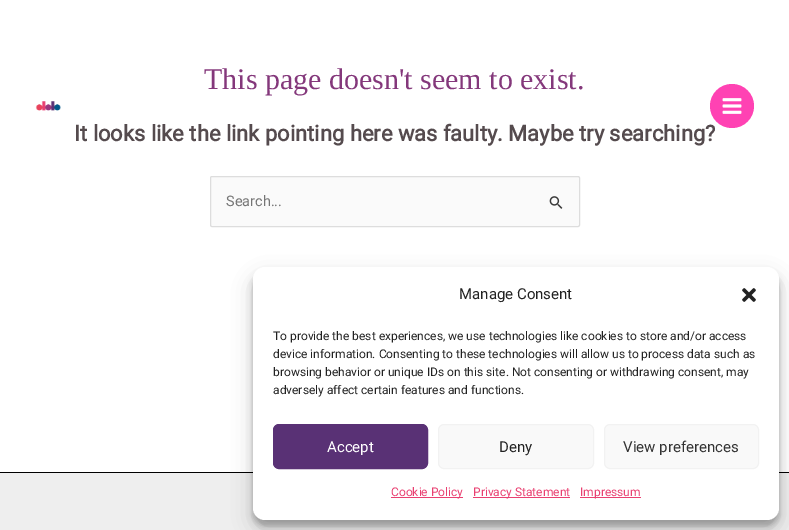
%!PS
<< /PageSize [789 530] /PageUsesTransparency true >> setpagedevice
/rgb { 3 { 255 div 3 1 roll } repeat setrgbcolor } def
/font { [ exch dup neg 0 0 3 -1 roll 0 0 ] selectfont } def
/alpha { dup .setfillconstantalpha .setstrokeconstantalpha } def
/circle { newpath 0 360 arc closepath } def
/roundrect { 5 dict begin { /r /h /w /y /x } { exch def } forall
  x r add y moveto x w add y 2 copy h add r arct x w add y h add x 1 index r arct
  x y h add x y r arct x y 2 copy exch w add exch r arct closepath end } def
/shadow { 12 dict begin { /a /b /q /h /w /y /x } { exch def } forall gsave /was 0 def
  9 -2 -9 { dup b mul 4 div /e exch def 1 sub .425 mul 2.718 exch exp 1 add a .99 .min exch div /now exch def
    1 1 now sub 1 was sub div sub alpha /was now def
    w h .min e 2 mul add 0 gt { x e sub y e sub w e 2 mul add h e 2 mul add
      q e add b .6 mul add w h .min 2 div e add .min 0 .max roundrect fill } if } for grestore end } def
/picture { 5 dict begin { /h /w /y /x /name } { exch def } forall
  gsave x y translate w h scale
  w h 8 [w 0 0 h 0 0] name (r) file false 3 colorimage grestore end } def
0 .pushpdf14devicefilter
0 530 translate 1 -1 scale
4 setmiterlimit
255 255 255 rgb
0 0 789 530 rectfill
250 250 250 rgb
210.5 176.5 369 50 1.5 roundrect gsave fill grestore
221 221 221 rgb
stroke
(img/1.rgb) 549 196 14 13 picture
(img/2.rgb) 35 101 26 10 picture
238 238 238 rgb
0 473 789 57 rectfill
0 0 0 rgb
0 472 789 1 rectfill
253 273 526 253 12 3 0.23 shadow
253 277 526 253 12 10 0.19 shadow
255 255 255 rgb
253 267 526 253 12 roundrect fill
(img/4.rgb) 742 288 14 14 picture
89 49 117 rgb
273.5 424.5 154 44 5.5 roundrect gsave fill grestore
stroke
249 249 249 rgb
438.5 424.5 155 44 5.5 roundrect gsave fill grestore
242 242 242 rgb
stroke
249 249 249 rgb
604.5 424.5 154 44 5.5 roundrect gsave fill grestore
242 242 242 rgb
stroke
[
  [391 497 72 1 233 64 113]
  [473 497 97 1 233 64 113]
  [580 497 61 1 233 64 113]
] { aload pop rgb rectfill } forall
/LiberationSerif-Regular 30 font
132 56 123 rgb
204 89 moveto (This page doesn't seem to exist.) show
/Roboto-Bold 21.9 font
85 75 78 rgb
74 141 moveto (It looks like the link pointing here was faulty. Maybe try searching?) show
/Roboto-Regular 14.5 font
117 117 117 rgb
226 206 moveto (Search...) show
255 66 179 rgb
732 106 22 circle fill
(img/3.rgb) 722 98 20 16 picture
/Roboto-Regular 15 font
34 34 34 rgb
459 299 moveto (Manage Consent) show
/Roboto-Regular 12 font
[
  [(To provide the best experiences, we use technologies like cookies to store and/or access) 273 340]
  [(device information. Consenting to these technologies will allow us to process data such as) 273 358]
  [(browsing behavior or unique IDs on this site. Not consenting or withdrawing consent, may) 273 376]
  [(adversely affect certain features and functions.) 273 394]
] { aload pop moveto show } forall
/Roboto-Regular 15 font
255 255 255 rgb
327 452 moveto (Accept) show
34 34 34 rgb
499 452 moveto (Deny) show
51 51 51 rgb
623 452 moveto (View preferences) show
/Roboto-Regular 12 font
233 64 113 rgb
[
  [(Cookie Policy) 391 496]
  [(Privacy Statement) 473 496]
  [(Impressum) 580 496]
] { aload pop moveto show } forall
.poppdf14devicefilter showpage
